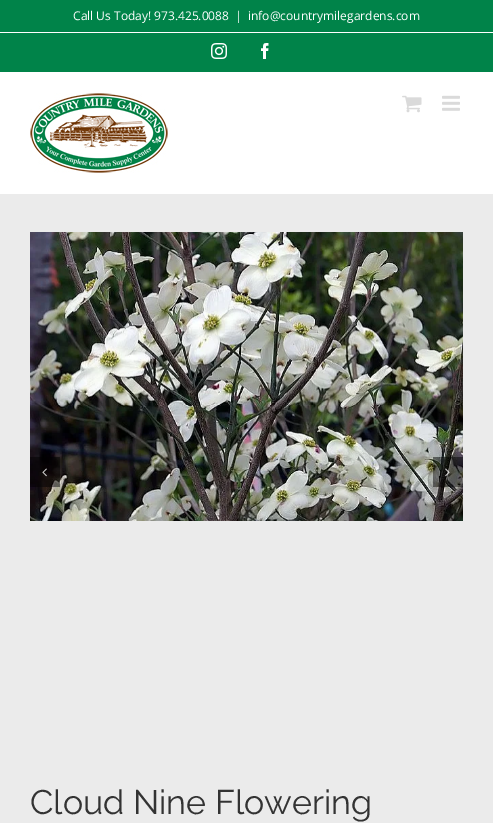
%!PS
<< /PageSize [493 823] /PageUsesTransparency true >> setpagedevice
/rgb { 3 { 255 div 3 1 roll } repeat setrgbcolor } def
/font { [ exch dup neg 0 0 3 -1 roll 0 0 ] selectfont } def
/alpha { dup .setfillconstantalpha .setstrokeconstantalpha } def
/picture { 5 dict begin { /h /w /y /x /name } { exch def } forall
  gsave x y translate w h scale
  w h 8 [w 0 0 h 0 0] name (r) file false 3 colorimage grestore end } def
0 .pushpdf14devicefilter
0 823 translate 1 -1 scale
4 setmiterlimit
235 235 235 rgb
0 0 493 823 rectfill
[
  [0 0 493 72 0 131 73]
  [0 72 493 122 255 255 255]
  [0 32 493 1 255 255 255]
] { aload pop rgb rectfill } forall
(img/1.rgb) 211 43 16 16 picture
(img/2.rgb) 261 43 8 16 picture
(img/3.rgb) 30 93 138 80 picture
(img/4.rgb) 402 95 20 18 picture
(img/5.rgb) 442 95 18 16 picture
(img/6.rgb) 30 232 433 289 picture
0.48 alpha
0 0 0 rgb
30 457 30 30 rectfill
1 alpha
(img/7.rgb) 42 468 5 9 picture
0.48 alpha
433 457 30 30 rectfill
1 alpha
(img/8.rgb) 445 468 5 9 picture
/OpenSans-Regular 12 font
255 255 255 rgb
[
  [(Call Us Today! 973.425.0088) 73 20]
  [(|) 235 20]
  [(info@countrymilegardens.com) 248 20]
] { aload pop moveto show } forall
/Raleway-Regular 34 font
51 51 51 rgb
30 814 moveto (Cloud Nine Flowering) show
.poppdf14devicefilter showpage
